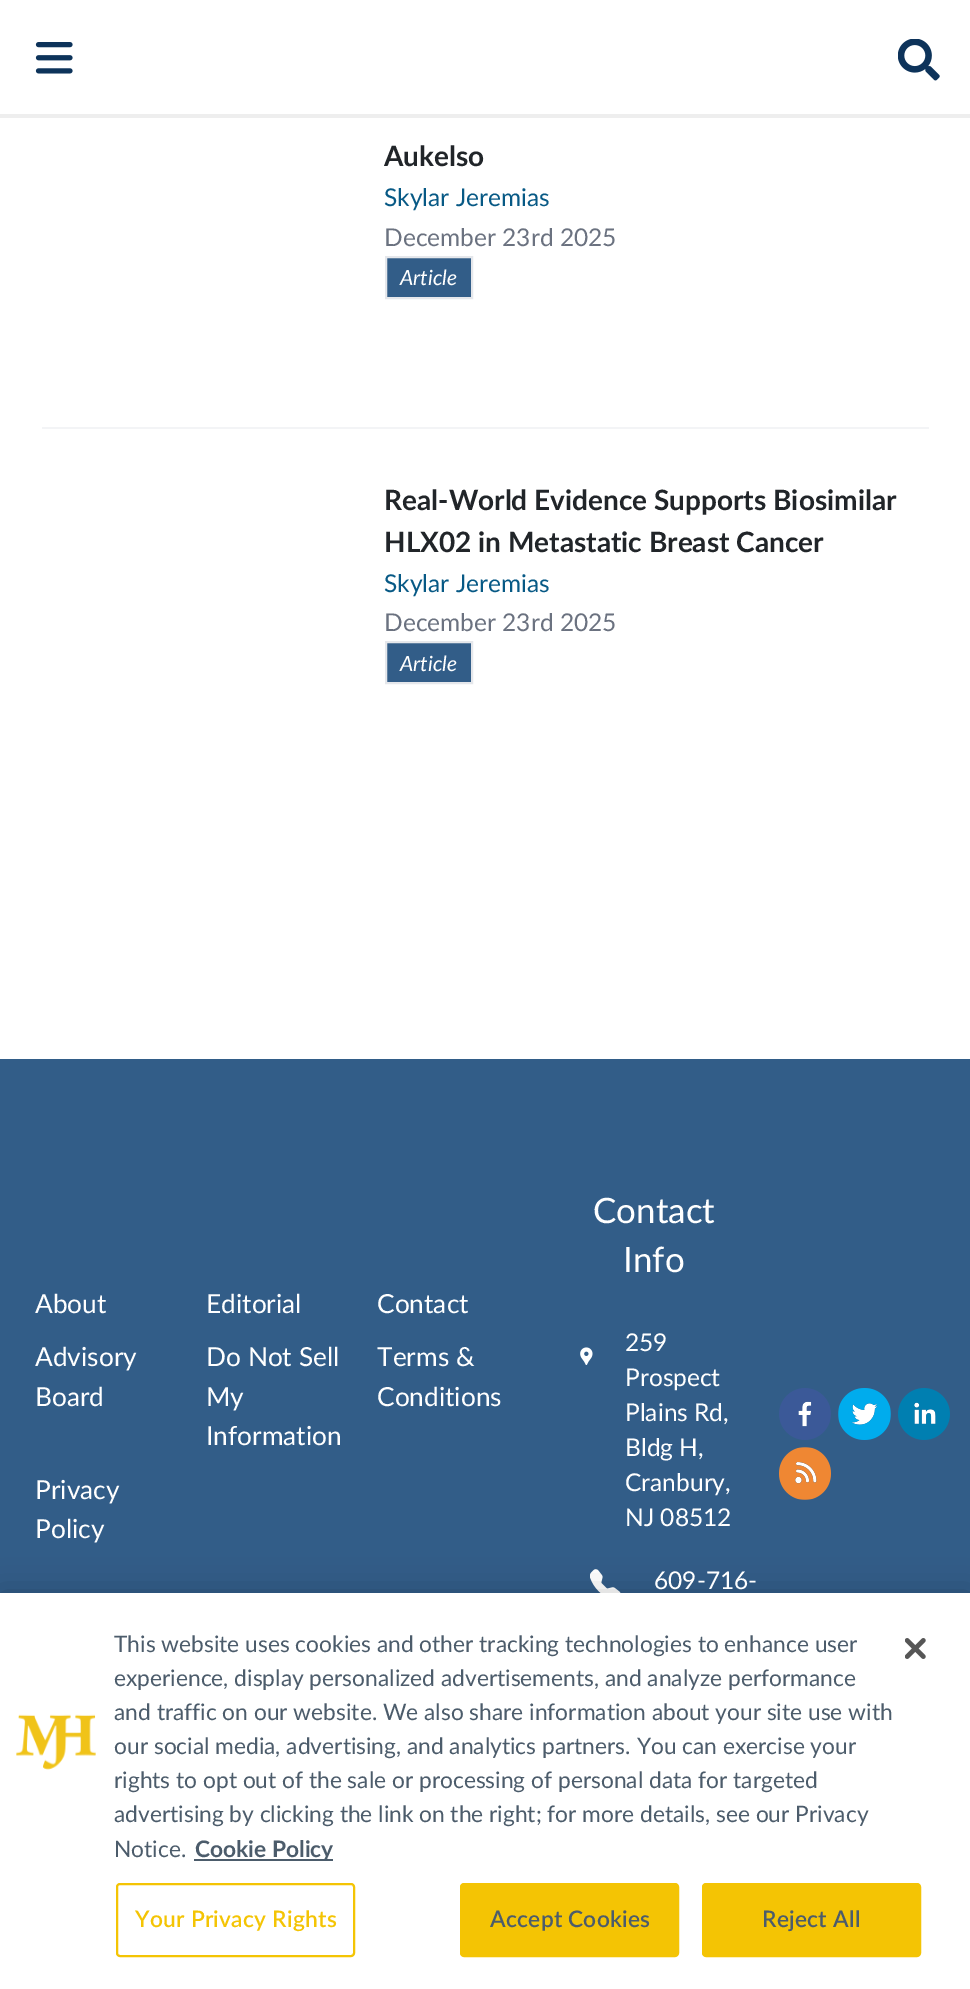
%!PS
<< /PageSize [970 1989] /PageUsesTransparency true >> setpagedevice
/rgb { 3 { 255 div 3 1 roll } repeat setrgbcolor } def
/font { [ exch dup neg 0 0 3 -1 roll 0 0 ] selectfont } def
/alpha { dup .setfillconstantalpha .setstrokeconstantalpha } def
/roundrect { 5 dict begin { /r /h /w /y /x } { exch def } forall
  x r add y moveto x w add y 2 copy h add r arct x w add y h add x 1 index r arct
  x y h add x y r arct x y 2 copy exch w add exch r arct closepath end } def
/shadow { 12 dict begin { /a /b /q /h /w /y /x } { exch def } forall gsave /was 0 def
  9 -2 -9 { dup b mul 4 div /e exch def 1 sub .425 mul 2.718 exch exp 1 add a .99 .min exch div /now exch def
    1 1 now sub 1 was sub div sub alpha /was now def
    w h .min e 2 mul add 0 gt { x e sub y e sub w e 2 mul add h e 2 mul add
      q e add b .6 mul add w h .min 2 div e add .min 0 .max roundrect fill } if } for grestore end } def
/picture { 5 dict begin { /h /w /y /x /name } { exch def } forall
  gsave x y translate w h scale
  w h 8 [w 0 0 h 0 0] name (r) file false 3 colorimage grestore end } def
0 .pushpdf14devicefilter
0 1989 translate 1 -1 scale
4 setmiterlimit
255 255 255 rgb
0 0 970 1989 rectfill
(img/1.rgb) 35 42 38 32 picture
(img/2.rgb) 898 39 42 42 picture
238 238 238 rgb
0 114 970 4 rectfill
50 93 136 rgb
386 257 moveto 472 257 lineto 472 298 lineto 386 298 lineto closepath gsave fill grestore
229 231 235 rgb
2 setlinewidth
stroke
243 244 246 rgb
42 427 887 2 rectfill
50 93 136 rgb
386 642 moveto 472 642 lineto 472 683 lineto 386 683 lineto closepath gsave fill grestore
229 231 235 rgb
stroke
50 93 136 rgb
0 1059 970 534 rectfill
(img/3.rgb) 580 1347 13 18 picture
(img/4.rgb) 590 1569 31 24 picture
(img/5.rgb) 779 1388 52 52 picture
(img/6.rgb) 838 1388 53 52 picture
(img/7.rgb) 898 1388 52 52 picture
(img/8.rgb) 779 1447 52 53 picture
0 0 0 rgb
0 1593 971 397 0 16 0.2 shadow
255 255 255 rgb
0 1593 970 396 rectfill
(img/9.rgb) 16 1714 80 56 picture
76 92 107 rgb
194 1859 139 2 rectfill
244 196 4 rgb
117 1884 237 72 3 roundrect stroke
461 1884 217 72 3 roundrect gsave fill grestore
stroke
703 1884 217 72 3 roundrect gsave fill grestore
stroke
(img/10.rgb) 905 1638 21 21 picture
/Lato-Bold 28 font
33 37 41 rgb
384 166 moveto (Aukelso) show
/Lato-Regular 24.5 font
7 89 133 rgb
384 206 moveto (Skylar Jeremias) show
107 114 128 rgb
384 246 moveto (December 23rd 2025) show
/Lato-Italic 21 font
255 255 255 rgb
400 285 moveto (Article) show
/Lato-Bold 28 font
33 37 41 rgb
384 510 moveto (Real-World Evidence Supports Biosimilar) show
384 552 moveto (HLX02 in Metastatic Breast Cancer) show
/Lato-Regular 24.5 font
7 89 133 rgb
384 592 moveto (Skylar Jeremias) show
107 114 128 rgb
384 631 moveto (December 23rd 2025) show
/Lato-Italic 21 font
255 255 255 rgb
400 671 moveto (Article) show
/Lato-Regular 26.25 font
[
  [(About) 35 1313]
  [(Editorial) 206 1313]
  [(Contact) 377 1313]
  [(Advisory) 35 1366]
  [(Board) 35 1406]
  [(Do Not Sell) 206 1366]
  [(My) 206 1406]
  [(Information) 206 1445]
  [(Terms &) 377 1366]
  [(Conditions) 377 1406]
  [(Privacy) 35 1499]
  [(Policy) 35 1538]
] { aload pop moveto show } forall
/Lato-Regular 35 font
593 1223 moveto (Contact) show
623 1272 moveto (Info) show
/Lato-Regular 24.5 font
[
  [(259) 625 1351]
  [(Prospect) 625 1386]
  [(Plains Rd,) 625 1421]
  [(Bldg H,) 625 1456]
  [(Cranbury,) 625 1491]
  [(NJ 08512) 625 1526]
  [(609-716-) 654 1589]
] { aload pop moveto show } forall
/Lato-Regular 22.75 font
76 92 107 rgb
[
  [(This website uses cookies and other tracking technologies to enhance user) 114 1652]
  [(experience, display personalized advertisements, and analyze performance) 114 1686]
  [(and traffic on our website. We also share information about your site use with) 114 1720]
  [(our social media, advertising, and analytics partners. You can exercise your) 114 1754]
  [(rights to opt out of the sale or processing of personal data for targeted) 114 1788]
  [(advertising by clicking the link on the right; for more details, see our Privacy) 114 1822]
  [(Notice.) 114 1857]
] { aload pop moveto show } forall
/Lato-Bold 22.75 font
195 1857 moveto (Cookie Policy) show
/Lato-SemiBold 22.75 font
244 196 4 rgb
135 1927 moveto 0.25 0 (Your Privacy Rights) ashow
76 92 107 rgb
490 1927 moveto 0.25 0 (Accept Cookies) ashow
762 1927 moveto 0.25 0 (Reject All) ashow
.poppdf14devicefilter showpage
